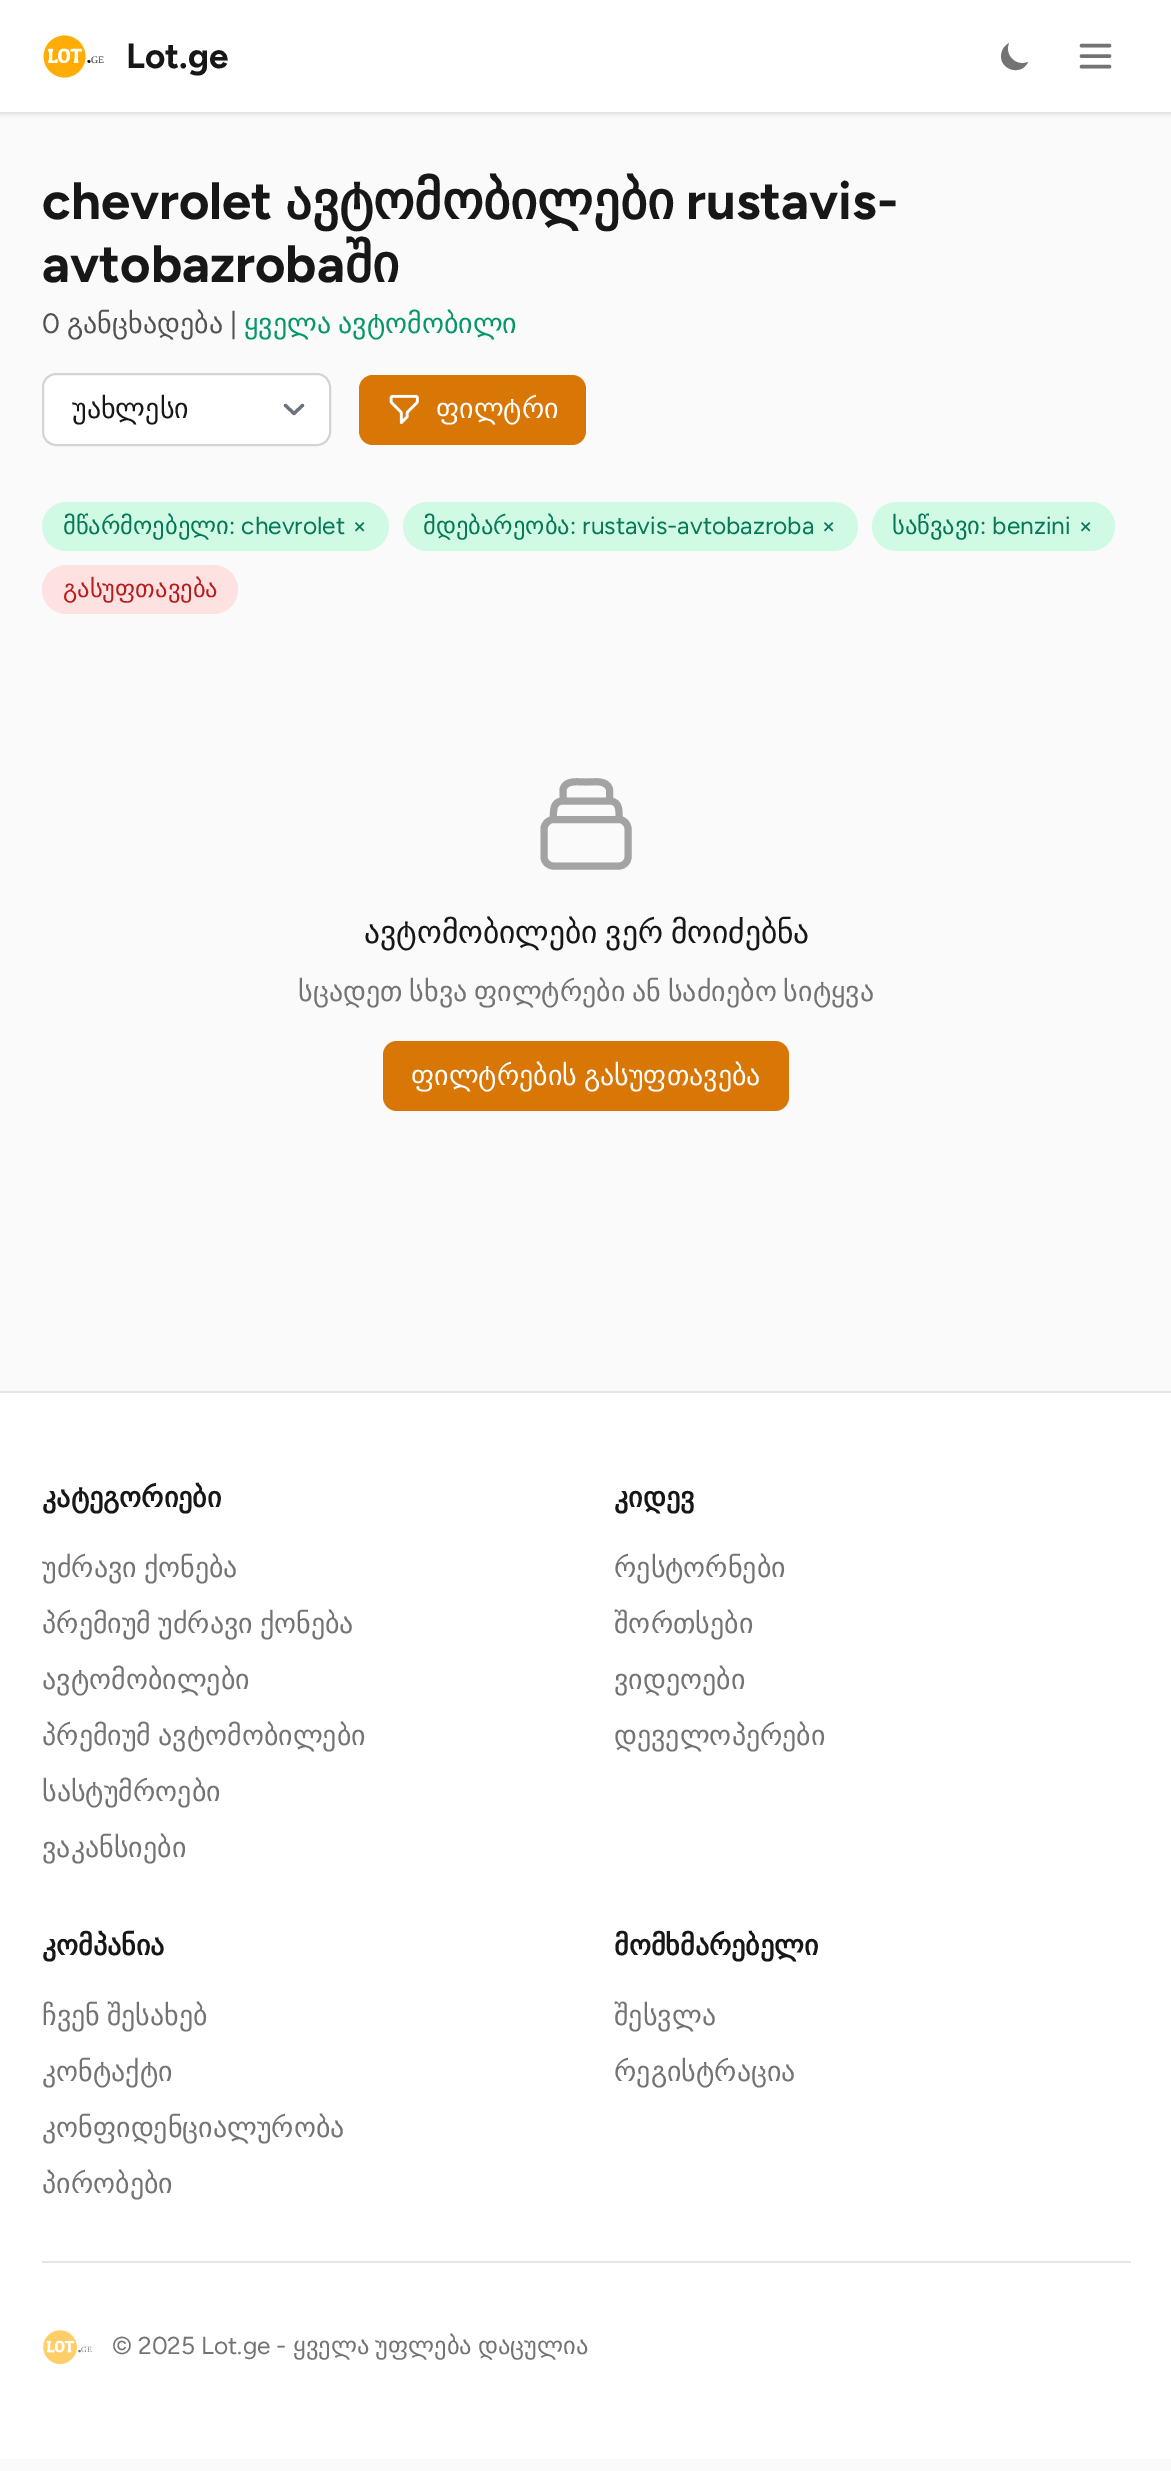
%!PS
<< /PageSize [1171 2471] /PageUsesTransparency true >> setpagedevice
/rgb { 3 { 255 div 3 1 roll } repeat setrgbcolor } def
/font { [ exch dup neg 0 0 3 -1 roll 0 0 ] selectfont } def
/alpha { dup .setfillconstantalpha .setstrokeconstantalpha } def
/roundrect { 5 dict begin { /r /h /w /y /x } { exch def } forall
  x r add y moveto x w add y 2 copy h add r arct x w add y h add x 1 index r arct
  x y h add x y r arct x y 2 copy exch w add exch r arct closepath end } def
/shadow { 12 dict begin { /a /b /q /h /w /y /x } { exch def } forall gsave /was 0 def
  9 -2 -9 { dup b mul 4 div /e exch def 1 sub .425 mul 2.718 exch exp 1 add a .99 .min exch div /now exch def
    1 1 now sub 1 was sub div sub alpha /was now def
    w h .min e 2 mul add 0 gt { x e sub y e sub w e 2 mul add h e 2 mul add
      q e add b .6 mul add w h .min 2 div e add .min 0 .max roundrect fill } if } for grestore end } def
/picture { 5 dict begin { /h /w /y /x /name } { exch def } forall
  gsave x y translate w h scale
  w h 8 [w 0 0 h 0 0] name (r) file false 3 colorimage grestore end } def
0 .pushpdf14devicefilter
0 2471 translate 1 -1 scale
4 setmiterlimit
250 250 250 rgb
0 0 1171 2471 rectfill
0 0 0 rgb
0 2 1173 114 0 2 0.05 shadow
255 255 255 rgb
0 0 1171 112 rectfill
229 229 229 rgb
0 112 1171 2 rectfill
(img/1.rgb) 43 35 48 43 picture
115 115 115 rgb
1028 62 moveto 1016 67 1004 55 1009 43 curveto 1006 45 1003 47.5 1002 51.5 curveto 996 68 1020.5 78 1028 62 curveto closepath fill
3.5 setlinewidth
1 setlinecap
1 setlinejoin
1081.5 45.5 moveto 1109.5 45.5 lineto 1081.5 56 moveto 1109.5 56 lineto 1081.5 66.5 moveto 1109.5 66.5 lineto stroke
255 255 255 rgb
42 373 289 73 14 roundrect fill
107 114 128 rgb
3.2 setlinewidth
285.5 405.5 moveto 294 413.5 lineto 302.5 405.5 lineto stroke
212 212 212 rgb
2 setlinewidth
0 setlinecap
0 setlinejoin
43 374 287 71 13 roundrect stroke
217 119 6 rgb
359 375 227 70 14 roundrect fill
(img/2.rgb) 389 394 30 31 picture
209 250 229 rgb
42 502 347 49 24.5 roundrect fill
403 502 455 49 24.5 roundrect fill
872 502 243 49 24.5 roundrect fill
254 226 226 rgb
42 565 196 49 24.5 roundrect fill
163 163 163 rgb
7 setlinewidth
1 setlinecap
1 setlinejoin
619 819.5 moveto 553.5 819.5 lineto 619 819.5 moveto 624 819.5 628 824 628 829 curveto 628 857 lineto 628 862 624 866 619 866 curveto 553.5 866 lineto 548.5 866 544 862 544 857 curveto 544 829 lineto 544 824 548.5 819.5 553.5 819.5 curveto 619 819.5 moveto 619 812.5 620.5 801 609.5 801 curveto 553.5 819.5 moveto 553.5 812.5 552 801 563 801 curveto 563 801 moveto 563 789.5 lineto 565 779.5 579 782 586 782 curveto 593.5 782 607.5 779.5 609.5 789.5 curveto 609.5 801 lineto 563 801 moveto 609.5 801 lineto stroke
217 119 6 rgb
383 1041 406 70 14 roundrect fill
[
  [0 1393 1171 1066 255 255 255]
  [0 1391 1171 2 229 229 229]
  [42 2261 1089 2 229 229 229]
] { aload pop rgb rectfill } forall
(img/3.rgb) 43 2330 38 34 picture
/LiberationSerif-Regular 10 font
51 51 51 rgb
91 63 moveto (GE) show
/Figtree-Bold 35 font
23 23 23 rgb
126 68 moveto (Lot.ge) show
/Figtree-Bold 52.5 font
42 219 moveto (chevrolet) show
/DejaVuSans-Bold 52.5 font
285 219 moveto (ავტომობილები) show
/Figtree-Bold 52.5 font
686 219 moveto (rustavis-) show
42 282 moveto (avtobazroba) show
/DejaVuSans-Bold 52.5 font
345 282 moveto (ში) show
/Figtree-Regular 28 font
82 82 82 rgb
42 333 moveto (0) show
/DejaVuSans-Regular 28 font
67 333 moveto (განცხადება) show
/Figtree-Regular 28 font
230 333 moveto (|) show
/DejaVuSans-Regular 28 font
5 150 105 rgb
244 333 moveto -2 0 32 (ყველა ავტომობილი) widthshow
23 23 23 rgb
72 418 moveto (უახლესი) show
255 255 255 rgb
436 418 moveto (ფილტრი) show
/DejaVuSans-Regular 24.5 font
4 120 87 rgb
63 534 moveto (მწარმოებელი) show
/Figtree-Regular 24.5 font
229 534 moveto (: chevrolet) show
352 534 moveto (×) show
/DejaVuSans-Regular 24.5 font
423 534 moveto (მდებარეობა) show
/Figtree-Regular 24.5 font
570 534 moveto (: rustavis-avtobazroba) show
821 534 moveto (×) show
/DejaVuSans-Regular 24.5 font
892 534 moveto (საწვავი) show
/Figtree-Regular 24.5 font
980 534 moveto (: benzini) show
1078 534 moveto (×) show
/DejaVuSans-Regular 24.5 font
185 28 28 rgb
63 597 moveto (გასუფთავება) show
/DejaVuSans-Regular 31.5 font
23 23 23 rgb
364 943 moveto -2 0 32 (ავტომობილები ვერ მოიძებნა) widthshow
/DejaVuSans-Regular 28 font
115 115 115 rgb
298 1001 moveto -2 0 32 (სცადეთ სხვა ფილტრები ან საძიებო სიტყვა) widthshow
255 255 255 rgb
411 1085 moveto -2 0 32 (ფილტრების გასუფთავება) widthshow
/DejaVuSans-Bold 28 font
23 23 23 rgb
42 1507 moveto (კატეგორიები) show
/DejaVuSans-Regular 28 font
115 115 115 rgb
42 1577 moveto -2 0 32 (უძრავი ქონება) widthshow
42 1633 moveto -2 0 32 (პრემიუმ უძრავი ქონება) widthshow
42 1689 moveto (ავტომობილები) show
42 1745 moveto -2 0 32 (პრემიუმ ავტომობილები) widthshow
42 1801 moveto (სასტუმროები) show
42 1857 moveto (ვაკანსიები) show
/DejaVuSans-Bold 28 font
23 23 23 rgb
614 1507 moveto (კიდევ) show
/DejaVuSans-Regular 28 font
115 115 115 rgb
[
  [(რესტორნები) 614 1577]
  [(შორთსები) 614 1633]
  [(ვიდეოები) 614 1689]
  [(დეველოპერები) 614 1745]
] { aload pop moveto show } forall
/DejaVuSans-Bold 28 font
23 23 23 rgb
42 1955 moveto (კომპანია) show
/DejaVuSans-Regular 28 font
115 115 115 rgb
42 2025 moveto -2 0 32 (ჩვენ შესახებ) widthshow
[
  [(კონტაქტი) 42 2081]
  [(კონფიდენციალურობა) 42 2137]
  [(პირობები) 42 2193]
] { aload pop moveto show } forall
/DejaVuSans-Bold 28 font
23 23 23 rgb
614 1955 moveto (მომხმარებელი) show
/DejaVuSans-Regular 28 font
115 115 115 rgb
614 2025 moveto (შესვლა) show
614 2081 moveto (რეგისტრაცია) show
/LiberationSerif-Regular 8 font
133 133 133 rgb
81 2352 moveto (GE) show
/Figtree-Regular 24.5 font
115 115 115 rgb
112 2354 moveto (© 2025 Lot.ge -) show
/DejaVuSans-Regular 24.5 font
[
  [(ყველა) 293 2354]
  [(უფლება) 375 2354]
  [(დაცულია) 478 2354]
] { aload pop moveto show } forall
.poppdf14devicefilter showpage
